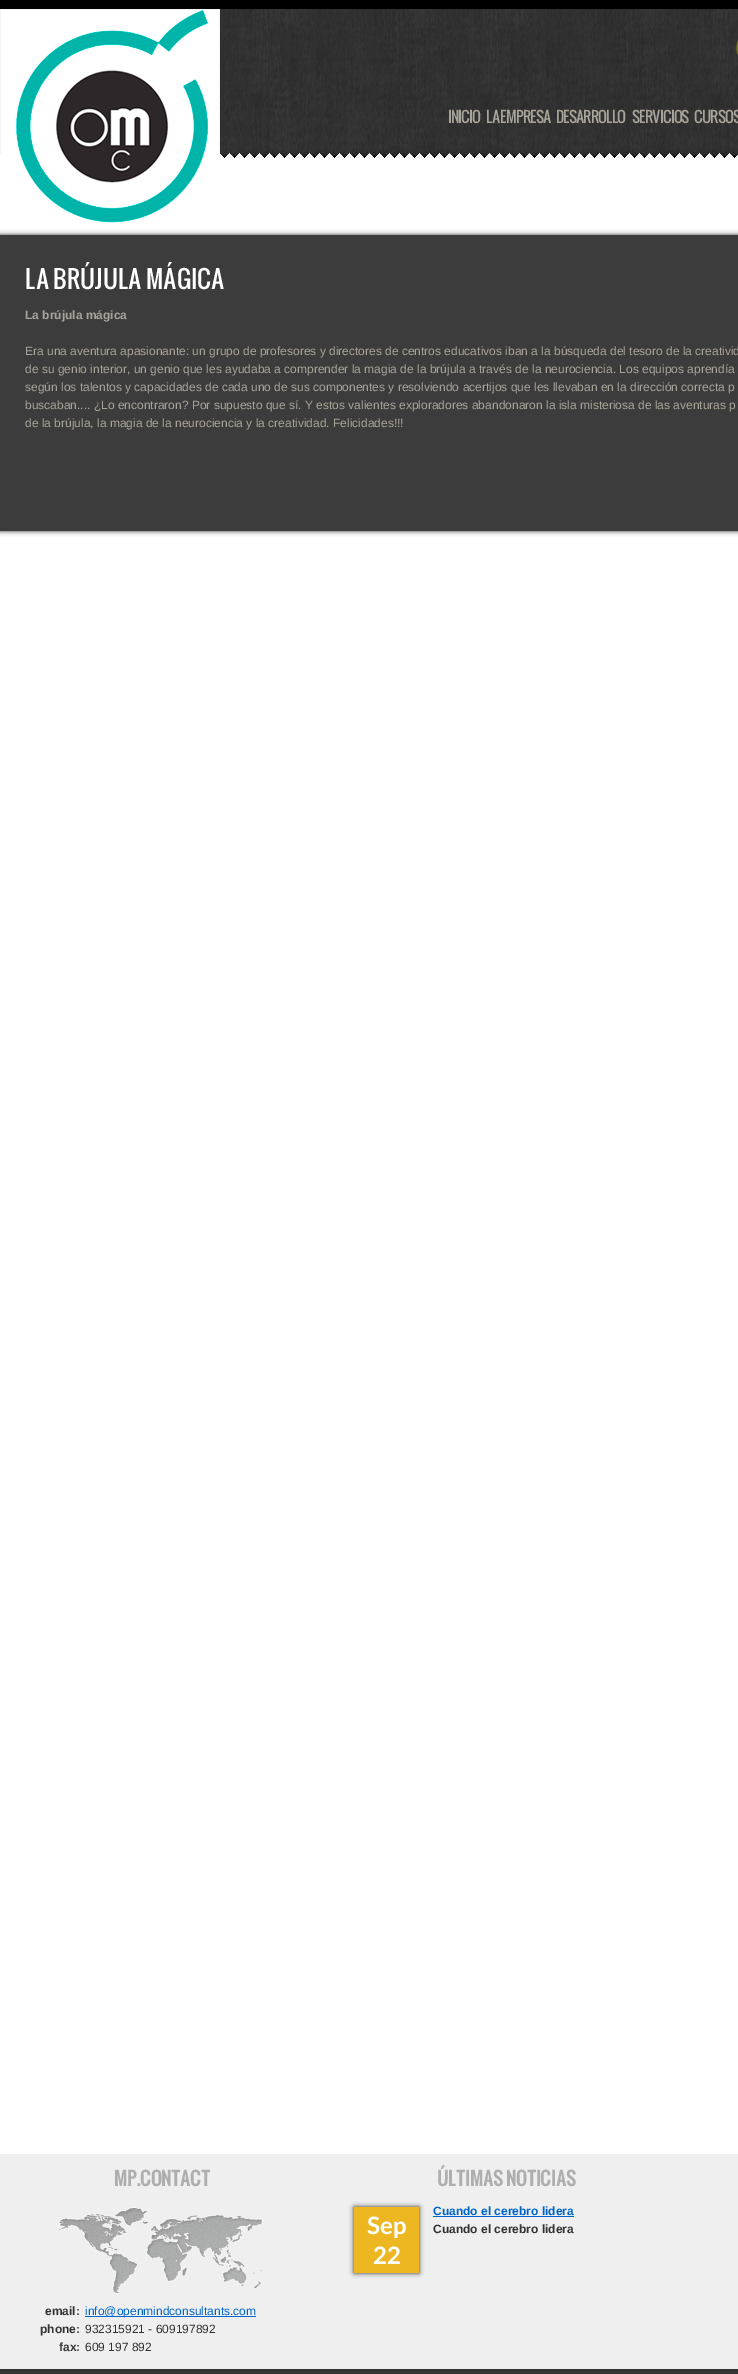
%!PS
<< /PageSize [738 2374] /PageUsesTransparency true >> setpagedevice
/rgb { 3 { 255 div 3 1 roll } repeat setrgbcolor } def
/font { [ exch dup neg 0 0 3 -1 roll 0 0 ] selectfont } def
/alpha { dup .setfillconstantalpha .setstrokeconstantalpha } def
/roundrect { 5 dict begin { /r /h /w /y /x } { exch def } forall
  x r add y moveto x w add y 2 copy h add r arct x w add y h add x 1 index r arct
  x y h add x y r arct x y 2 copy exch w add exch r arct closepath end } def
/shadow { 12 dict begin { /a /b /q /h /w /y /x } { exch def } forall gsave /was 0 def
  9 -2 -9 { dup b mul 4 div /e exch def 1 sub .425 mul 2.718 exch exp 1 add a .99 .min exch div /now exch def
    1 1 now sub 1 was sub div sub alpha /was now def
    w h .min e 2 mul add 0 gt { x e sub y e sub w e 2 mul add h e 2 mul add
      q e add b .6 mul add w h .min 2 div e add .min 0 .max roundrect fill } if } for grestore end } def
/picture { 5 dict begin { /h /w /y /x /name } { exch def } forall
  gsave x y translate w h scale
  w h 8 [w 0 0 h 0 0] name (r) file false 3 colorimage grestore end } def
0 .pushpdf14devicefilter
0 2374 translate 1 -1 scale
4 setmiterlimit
255 255 255 rgb
0 0 738 2374 rectfill
0 0 0 rgb
0 0 738 9 rectfill
(img/1.rgb) 0 9 738 149 picture
(img/2.rgb) 0 9 220 214 picture
(img/3.rgb) 736 40 2 16 picture
51 51 51 rgb
0 235 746 296 0 2.5 1 shadow
60 60 60 rgb
0 235 738 296 rectfill
239 239 239 rgb
0 2154 738 215 rectfill
(img/4.rgb) 57 2207 206 87 picture
0 102 204 rgb
85 2316 171 1 rectfill
51 51 51 rgb
354 2207 65 66 0 2.5 1 shadow
[
  [354 2207 65 66 237 183 33]
  [433 2216 141 1 0 102 204]
  [0 2369 738 5 51 51 51]
] { aload pop rgb rectfill } forall
/Oswald-Regular 15 font
168 164 154 rgb
448 123 moveto -1 0 (INICIO) ashow
486 123 moveto -1 0 (LA EMPRESA) ashow
556 123 moveto -1 0 (DESARROLLO) ashow
632 123 moveto -1 0 (SERVICIOS) ashow
694 123 moveto -1 0 (CURSOS) ashow
/Oswald-Regular 24 font
255 255 255 rgb
25 289 moveto (LA BRÚJULA MÁGICA) show
/LiberationSans-Bold 12 font
168 164 154 rgb
25 319 moveto (La brújula mágica) show
/LiberationSans-Regular 12 font
[
  [(Era una aventura apasionante: un grupo de profesores y directores de centros educativos iban a la búsqueda del tesoro de la creativid) 25 355]
  [(de su genio interior, un genio que les ayudaba a comprender la magia de la brújula a través de la neurociencia. Los equipos aprendía) 25 373]
  [(según los talentos y capacidades de cada uno de sus componentes y resolviendo acertijos que les llevaban en la dirección correcta p) 25 391]
  [(buscaban.... ¿Lo encontraron? Por supuesto que sí. Y estos valientes exploradores abandonaron la isla misteriosa de las aventuras p) 25 409]
  [(de la brújula, la magia de la neurociencia y la creatividad. Felicidades!!!) 25 427]
] { aload pop moveto show } forall
/Oswald-Bold 18 font
174 174 174 rgb
114 2186 moveto (MP.CONTACT) show
/LiberationSans-Bold 12 font
51 51 51 rgb
45 2315 moveto (email:) show
/LiberationSans-Regular 12 font
0 102 204 rgb
85 2315 moveto (info@openmindconsultants.com) show
/LiberationSans-Bold 12 font
51 51 51 rgb
40 2333 moveto (phone:) show
/LiberationSans-Regular 12 font
85 2333 moveto (932315921 - 609197892) show
/LiberationSans-Bold 12 font
59 2351 moveto (fax:) show
/LiberationSans-Regular 12 font
85 2351 moveto (609 197 892) show
/Oswald-Bold 18 font
174 174 174 rgb
437 2186 moveto (ÚLTIMAS NOTICIAS) show
/Lato-Bold 24 font
255 255 255 rgb
367 2234 moveto (Sep) show
373 2264 moveto (22) show
/LiberationSans-Bold 12 font
0 102 204 rgb
433 2215 moveto (Cuando el cerebro lidera) show
51 51 51 rgb
433 2233 moveto (Cuando el cerebro lidera) show
.poppdf14devicefilter showpage
